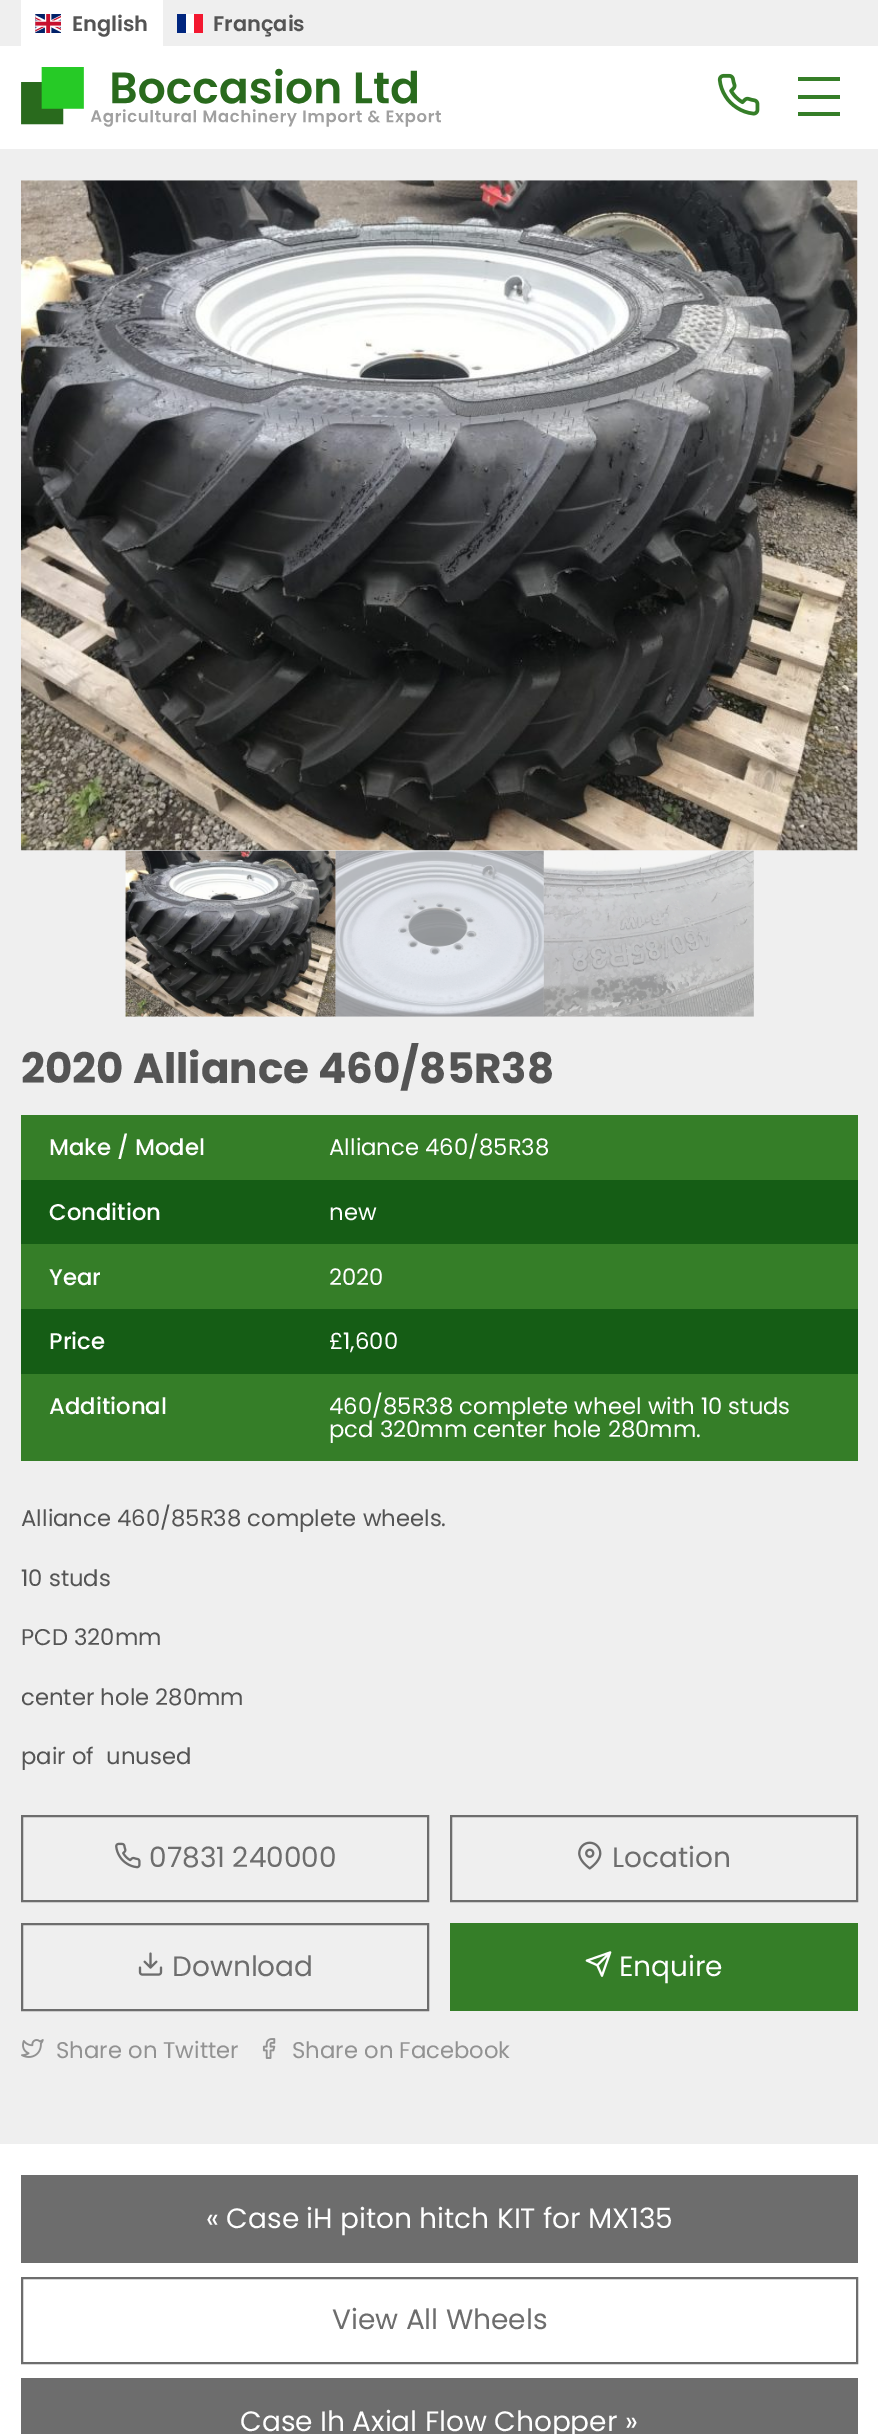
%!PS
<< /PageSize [878 2434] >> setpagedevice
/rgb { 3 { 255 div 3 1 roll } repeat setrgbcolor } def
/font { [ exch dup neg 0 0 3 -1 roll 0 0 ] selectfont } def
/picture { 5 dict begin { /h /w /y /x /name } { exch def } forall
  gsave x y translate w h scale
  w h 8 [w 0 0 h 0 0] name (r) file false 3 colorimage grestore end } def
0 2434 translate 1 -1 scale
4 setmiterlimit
239 239 239 rgb
0 0 878 2434 rectfill
255 255 255 rgb
21 0 142 46 rectfill
(img/1.rgb) 35 14 26 19 picture
[
  [177 14 9 19 0 38 127]
  [186 14 8 19 255 255 255]
  [194 14 9 19 243 24 48]
  [0 46 878 103 255 255 255]
] { aload pop rgb rectfill } forall
(img/2.rgb) 21 67 420 60 picture
(img/3.rgb) 717 73 43 43 picture
[
  [798 95 42 4 53 126 40]
  [798 77 42 4 53 126 40]
  [798 112 42 4 53 126 40]
] { aload pop rgb rectfill } forall
(img/4.rgb) 21 180 837 671 picture
(img/5.rgb) 125 850 211 167 picture
(img/6.rgb) 335 850 209 167 picture
(img/7.rgb) 543 850 211 167 picture
[
  [21 1115 837 65 53 126 40]
  [21 1180 837 64 21 93 21]
  [21 1244 837 65 53 126 40]
  [21 1309 837 65 21 93 21]
  [21 1374 837 87 53 126 40]
] { aload pop rgb rectfill } forall
109 109 109 rgb
2 setlinewidth
22 1816 406 85 rectstroke
(img/8.rgb) 115 1842 26 27 picture
451 1816 406 85 rectstroke
(img/9.rgb) 578 1841 24 29 picture
22 1924 406 86 rectstroke
(img/10.rgb) 138 1952 25 24 picture
53 126 40 rgb
450 1923 408 88 rectfill
(img/11.rgb) 585 1951 27 26 picture
(img/12.rgb) 21 2039 23 19 picture
(img/13.rgb) 262 2038 14 21 picture
255 255 255 rgb
0 2144 878 290 rectfill
109 109 109 rgb
21 2175 837 88 rectfill
22 2278 835 85 rectstroke
21 2378 837 56 rectfill
/Poppins-SemiBold 21 font
84 84 84 rgb
72 31 moveto (English) show
213 31 moveto (Français) show
/Poppins-Bold 42 font
21 1083 moveto (2020 Alliance 460/85R38) show
/Poppins-Medium 22.75 font
255 255 255 rgb
49 1155 moveto (Make / Model) show
/Poppins-Regular 22.75 font
329 1155 moveto (Alliance 460/85R38) show
/Poppins-Medium 22.75 font
49 1220 moveto (Condition) show
/Poppins-Regular 22.75 font
329 1220 moveto (new) show
/Poppins-Medium 22.75 font
49 1285 moveto (Year) show
/Poppins-Regular 22.75 font
329 1285 moveto (2020) show
/Poppins-Medium 22.75 font
49 1349 moveto (Price) show
/Poppins-Regular 22.75 font
329 1349 moveto (£1,600) show
/Poppins-Medium 22.75 font
49 1414 moveto (Additional) show
/Poppins-Regular 22.75 font
329 1414 moveto (460/85R38 complete wheel with 10 studs) show
329 1437 moveto (pcd 320mm center hole 280mm.) show
84 84 84 rgb
[
  [(Alliance 460/85R38 complete wheels.) 21 1526]
  [(10 studs) 21 1586]
  [(PCD 320mm) 21 1645]
  [(center hole 280mm) 21 1705]
  [(pair of  unused) 21 1764]
] { aload pop moveto show } forall
/Poppins-Regular 28 font
109 109 109 rgb
[
  [(07831 240000) 149 1867]
  [(Location) 612 1867]
  [(Download) 172 1976]
] { aload pop moveto show } forall
255 255 255 rgb
619 1976 moveto (Enquire) show
/Poppins-Regular 22.75 font
146 146 146 rgb
56 2058 moveto (Share on Twitter) show
292 2058 moveto (Share on Facebook) show
/Poppins-Regular 28 font
255 255 255 rgb
206 2228 moveto (« Case iH piton hitch KIT for MX135) show
109 109 109 rgb
332 2329 moveto (View All Wheels) show
255 255 255 rgb
240 2431 moveto (Case Ih Axial Flow Chopper ») show
showpage
